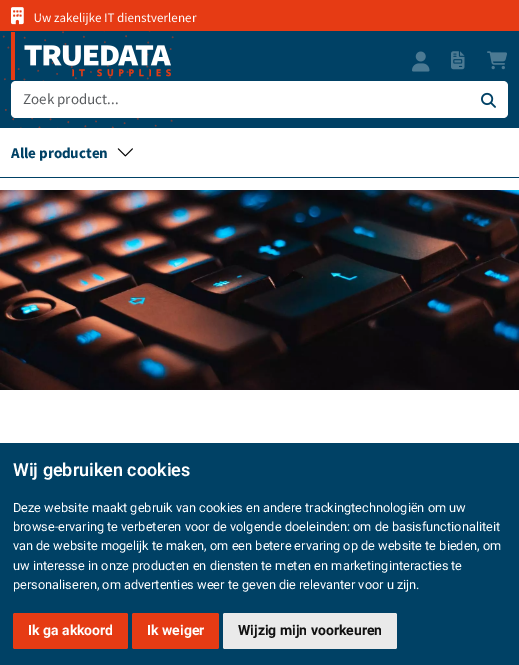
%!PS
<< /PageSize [519 665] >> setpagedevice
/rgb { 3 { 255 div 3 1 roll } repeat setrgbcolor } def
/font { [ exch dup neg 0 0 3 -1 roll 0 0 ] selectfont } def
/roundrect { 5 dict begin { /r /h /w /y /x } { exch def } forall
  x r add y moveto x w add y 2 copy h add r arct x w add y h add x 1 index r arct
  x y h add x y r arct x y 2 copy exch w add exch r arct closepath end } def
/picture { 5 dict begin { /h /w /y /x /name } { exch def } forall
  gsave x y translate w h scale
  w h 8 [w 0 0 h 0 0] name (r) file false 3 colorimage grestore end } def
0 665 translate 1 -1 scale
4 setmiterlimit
255 255 255 rgb
0 0 519 665 rectfill
0 65 101 rgb
0 31 519 97 rectfill
230 59 20 rgb
0 0 519 31 rectfill
(img/1.rgb) 11 7 13 18 picture
(img/4.rgb) 412 51 18 21 picture
(img/5.rgb) 451 51 14 19 picture
(img/6.rgb) 487 51 20 19 picture
255 255 255 rgb
468 81 moveto 503 81 lineto 506 81 508 83 508 86 curveto 508 113 lineto 508 116 506 118 503 118 curveto 468 118 lineto closepath fill
(img/7.rgb) 481 92 15 16 picture
0 65 101 rgb
0 177 519 1 rectfill
(img/8.rgb) 117 148 16 9 picture
(img/9.rgb) 0 190 519 200 picture
0 443 519 222 rectfill
230 59 20 rgb
13 613 115 36 2 roundrect fill
132 613 87 36 2 roundrect fill
234 234 234 rgb
223 613 174 36 2 roundrect fill
/SourceSansPro-Regular 13 font
255 255 255 rgb
34 22 moveto (Uw zakelijke IT dienstverlener) show
(img/2.rgb) 0 13 178 115 picture
(img/3.rgb) 11 32 160 48 picture
16 81 moveto 468 81 lineto 468 118 lineto 16 118 lineto 13 118 11 116 11 113 curveto 11 86 lineto 11 83 13 81 16 81 curveto closepath fill
/SourceSansPro-Regular 15 font
89 92 95 rgb
23 104 moveto (Zoek product...) show
/SourceSansPro-Bold 15 font
0 65 101 rgb
11 158 moveto (Alle producten) show
/Roboto-SemiBold 18 font
255 255 255 rgb
13 476 moveto (Wij gebruiken cookies) show
/Roboto-Regular 12.75 font
[
  [(Deze website maakt gebruik van cookies en andere trackingtechnologiën om uw) 13 512]
  [(browse-ervaring te verbeteren voor de volgende doeleinden: om de basisfunctionaliteit) 13 531]
  [(van de website mogelijk te maken, om een betere ervaring op de website te bieden, om) 13 550]
  [(uw interesse in onze producten en diensten te meten en marketinginteracties te) 13 570]
  [(personaliseren, om advertenties weer te geven die relevanter voor u zijn.) 13 589]
] { aload pop moveto show } forall
/Roboto-Bold 14 font
28 635 moveto (Ik ga akkoord) show
147 635 moveto (Ik weiger) show
17 17 17 rgb
238 635 moveto (Wijzig mijn voorkeuren) show
showpage
